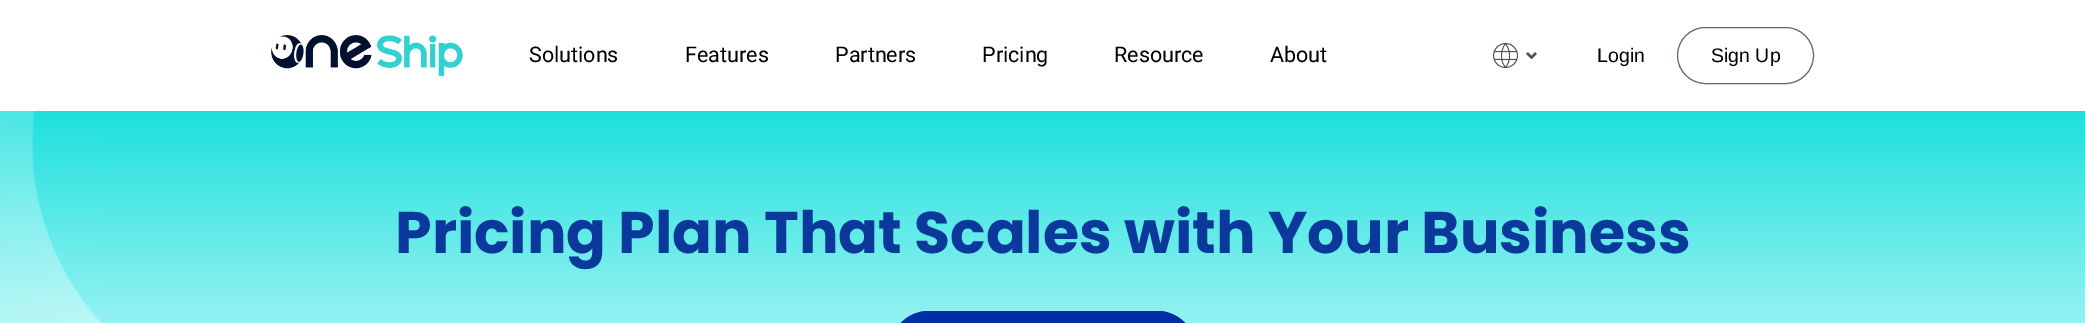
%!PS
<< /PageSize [2085 323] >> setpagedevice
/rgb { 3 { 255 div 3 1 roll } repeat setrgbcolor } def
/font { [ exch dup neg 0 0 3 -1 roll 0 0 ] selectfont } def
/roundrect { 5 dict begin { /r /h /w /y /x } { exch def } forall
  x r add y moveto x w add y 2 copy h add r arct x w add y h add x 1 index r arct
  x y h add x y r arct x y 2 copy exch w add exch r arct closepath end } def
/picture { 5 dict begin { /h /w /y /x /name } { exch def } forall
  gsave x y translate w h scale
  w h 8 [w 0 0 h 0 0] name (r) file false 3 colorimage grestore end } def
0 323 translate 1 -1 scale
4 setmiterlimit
255 255 255 rgb
0 0 2085 323 rectfill
(img/1.rgb) 271 35 192 41 picture
(img/2.rgb) 1493 43 25 25 picture
79 79 79 rgb
2.2 setlinewidth
1527 53 moveto 1531.5 57.5 lineto 1536 53 lineto stroke
93 104 117 rgb
1 setlinewidth
1677.5 27.5 136 56 28 roundrect stroke
gsave 0 111 moveto 2085 111 lineto 2085 323 lineto 0 323 lineto closepath clip newpath
<< /ShadingType 2 /ColorSpace /DeviceRGB /Coords [1043 111 1043 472] /Extend [true true] /Function << /FunctionType 2 /Domain [0 1] /C0 [0.114 0.878 0.867] /C1 [0.914 1 1] /N 1 >> >> shfill grestore
(img/3.rgb) 0 111 101 212 picture
0 46 166 rgb
929 311 moveto 1157 311 lineto 1178.5 311 1196 328.5 1196 350 curveto 1196 323 lineto 890 323 lineto 890 350 lineto 890 328.5 907.5 311 929 311 curveto closepath fill
890.5 311.5 305 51 38.5 roundrect stroke
/Roboto-Regular 21.5 font
0 0 0 rgb
[
  [(Solutions) 529 62]
  [(Features) 685 62]
  [(Partners) 835 62]
  [(Pricing) 982 62]
  [(Resource) 1114 62]
  [(About) 1270 62]
] { aload pop moveto show } forall
/LiberationSans-Regular 19.5 font
1597 62 moveto (Login) show
1711 62 moveto (Sign Up) show
/Poppins-Bold 58.6 font
10 57 155 rgb
395 253 moveto (Pricing Plan That Scales with Your Business) show
showpage
